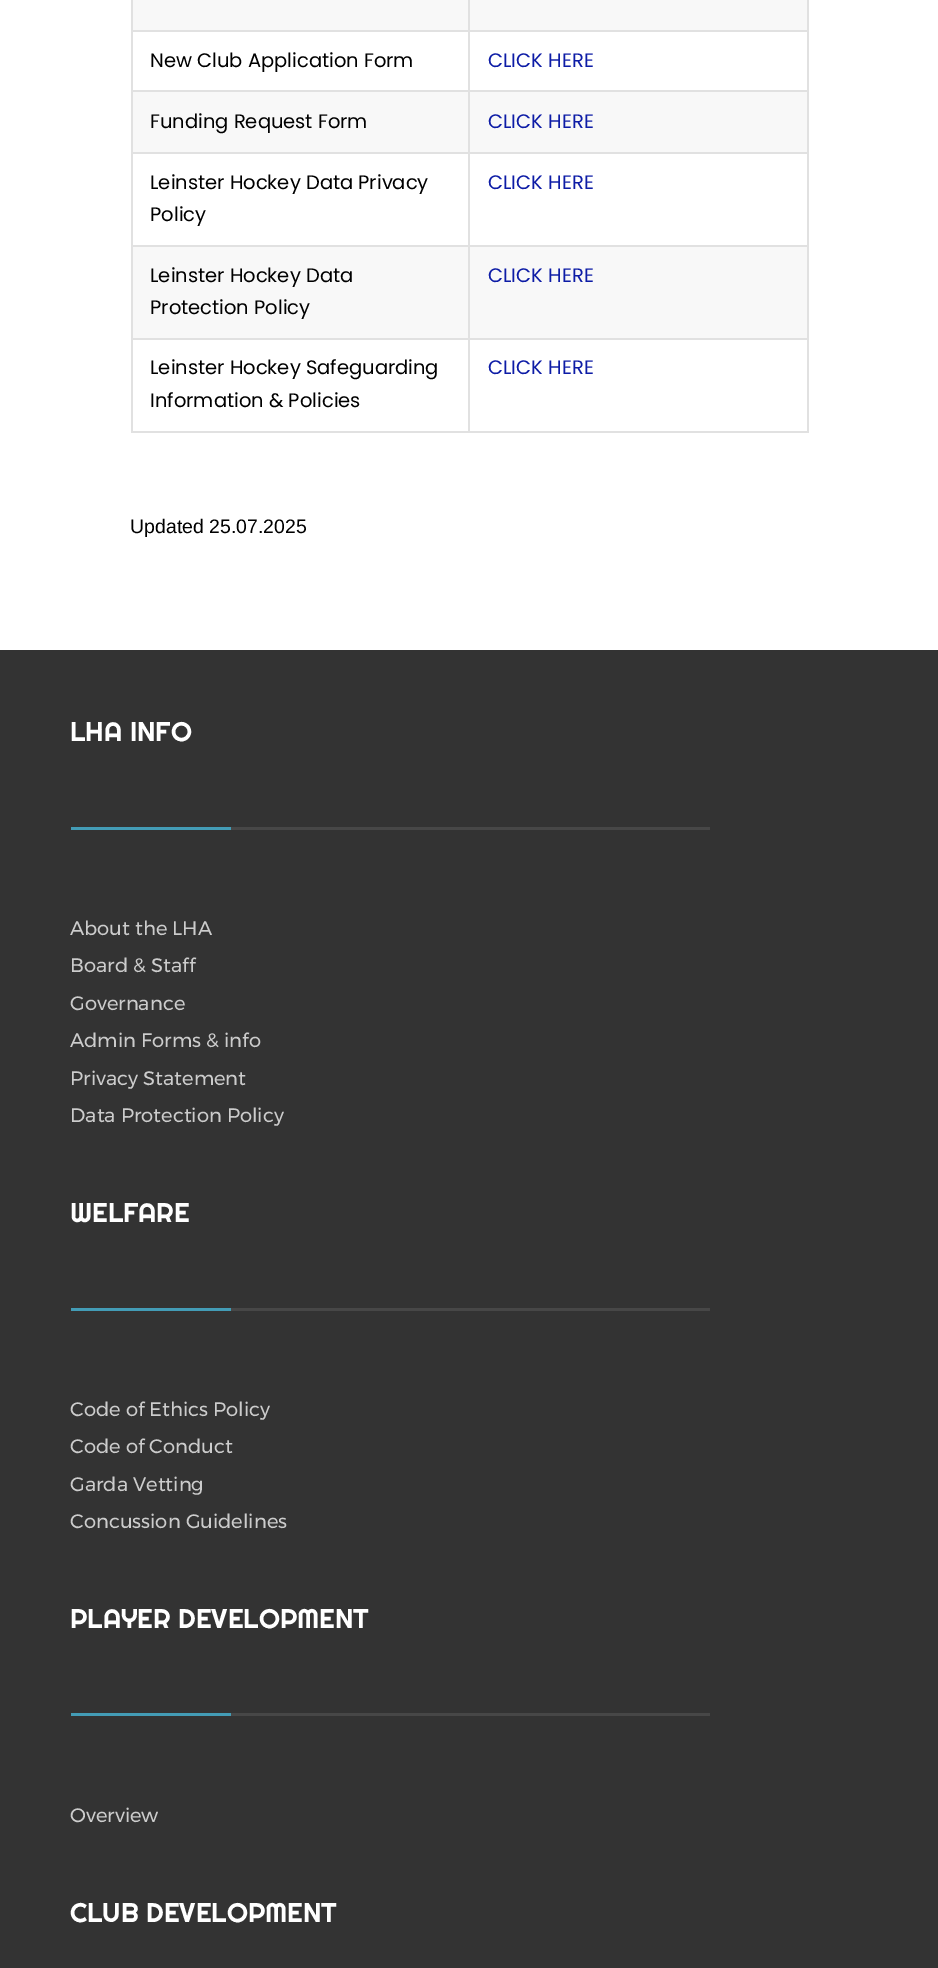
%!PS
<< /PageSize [938 1968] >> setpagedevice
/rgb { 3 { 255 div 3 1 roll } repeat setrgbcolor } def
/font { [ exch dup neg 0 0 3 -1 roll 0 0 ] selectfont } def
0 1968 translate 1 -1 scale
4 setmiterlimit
255 255 255 rgb
0 0 938 1968 rectfill
[
  [133 0 674 338 248 248 248]
  [133 32 674 58 255 255 255]
  [133 154 674 91 255 255 255]
  [807 0 2 432 225 225 225]
  [468 431 341 2 225 225 225]
  [468 338 2 94 225 225 225]
  [468 338 341 2 225 225 225]
  [468 245 2 94 225 225 225]
  [468 245 341 2 225 225 225]
  [468 152 2 94 225 225 225]
  [468 152 341 2 225 225 225]
  [468 90 2 63 225 225 225]
  [468 90 341 2 225 225 225]
  [468 30 2 62 225 225 225]
  [468 30 341 2 225 225 225]
  [468 0 2 32 225 225 225]
  [131 431 339 2 225 225 225]
  [131 338 2 94 225 225 225]
  [131 338 339 2 225 225 225]
  [131 245 2 94 225 225 225]
  [131 245 339 2 225 225 225]
  [131 152 2 94 225 225 225]
  [131 152 339 2 225 225 225]
  [131 90 2 63 225 225 225]
  [131 90 339 2 225 225 225]
  [131 30 2 62 225 225 225]
  [131 30 339 2 225 225 225]
  [131 0 2 32 225 225 225]
  [0 650 938 1318 51 51 51]
  [71 827 160 3 67 156 182]
  [231 827 479 3 71 71 71]
  [71 1308 160 3 67 156 182]
  [231 1308 479 3 71 71 71]
  [71 1713 160 3 67 156 182]
  [231 1713 479 3 71 71 71]
] { aload pop rgb rectfill } forall
/Poppins-Regular 19.5 font
0 0 0 rgb
150 67 moveto (New Club Application Form) show
13 28 166 rgb
488 67 moveto (CLICK HERE) show
0 0 0 rgb
150 128 moveto (Funding Request Form) show
13 28 166 rgb
488 128 moveto (CLICK HERE) show
0 0 0 rgb
150 189 moveto (Leinster Hockey Data Privacy) show
150 221 moveto (Policy) show
13 28 166 rgb
488 189 moveto (CLICK HERE) show
0 0 0 rgb
150 282 moveto (Leinster Hockey Data) show
150 314 moveto (Protection Policy) show
13 28 166 rgb
488 282 moveto (CLICK HERE) show
0 0 0 rgb
150 374 moveto (Leinster Hockey Safeguarding) show
150 407 moveto (Information & Policies) show
13 28 166 rgb
488 374 moveto (CLICK HERE) show
/LiberationSans-Regular 19.5 font
0 0 0 rgb
130 533 moveto (Updated 25.07.2025) show
/Righteous-Regular 27 font
255 255 255 rgb
70 741 moveto (LHA INFO) show
/Montserrat-Regular 19.5 font
204 204 204 rgb
[
  [(About the LHA) 70 935]
  [(Board & Staff) 70 972]
  [(Governance) 70 1010]
  [(Admin Forms & info) 70 1047]
  [(Privacy Statement) 70 1085]
  [(Data Protection Policy) 70 1122]
] { aload pop moveto show } forall
/Righteous-Regular 27 font
255 255 255 rgb
70 1222 moveto (WELFARE) show
/Montserrat-Regular 19.5 font
204 204 204 rgb
[
  [(Code of Ethics Policy) 70 1416]
  [(Code of Conduct) 70 1453]
  [(Garda Vetting) 70 1491]
  [(Concussion Guidelines) 70 1528]
] { aload pop moveto show } forall
/Righteous-Regular 27 font
255 255 255 rgb
70 1628 moveto (PLAYER DEVELOPMENT) show
/Montserrat-Regular 19.5 font
204 204 204 rgb
70 1822 moveto (Overview) show
/Righteous-Regular 27 font
255 255 255 rgb
70 1922 moveto (CLUB DEVELOPMENT) show
showpage
